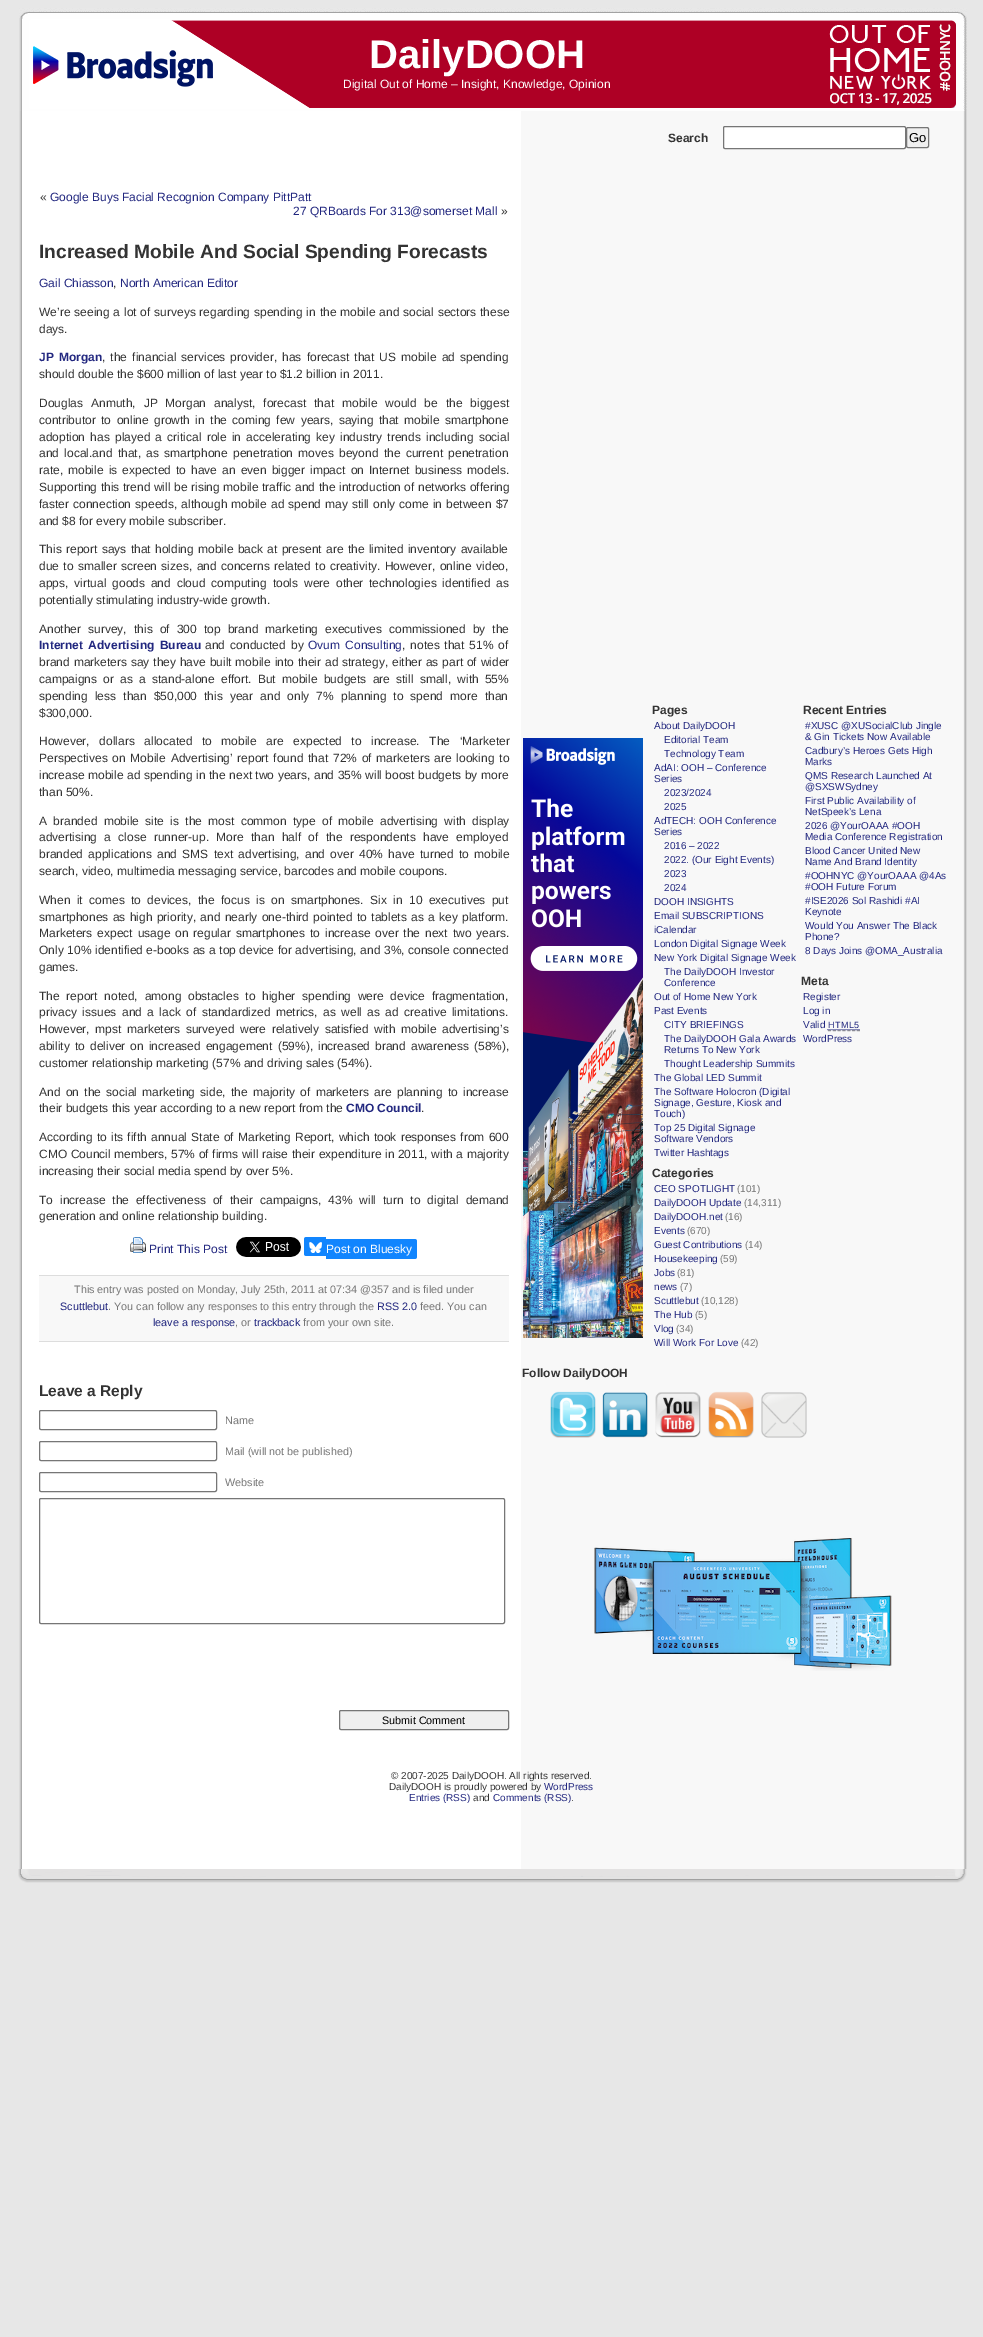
%!PS
<< /PageSize [983 2337] >> setpagedevice
/rgb { 3 { 255 div 3 1 roll } repeat setrgbcolor } def
/font { [ exch dup neg 0 0 3 -1 roll 0 0 ] selectfont } def
/roundrect { 5 dict begin { /r /h /w /y /x } { exch def } forall
  x r add y moveto x w add y 2 copy h add r arct x w add y h add x 1 index r arct
  x y h add x y r arct x y 2 copy exch w add exch r arct closepath end } def
/picture { 5 dict begin { /h /w /y /x /name } { exch def } forall
  gsave x y translate w h scale
  w h 8 [w 0 0 h 0 0] name (r) file false 3 colorimage grestore end } def
0 2337 translate 1 -1 scale
4 setmiterlimit
231 231 231 rgb
0 0 983 2337 rectfill
(img/1.rgb) 19 111 948 1758 picture
(img/2.rgb) 19 8 948 103 picture
(img/3.rgb) 130 1237 16 16 picture
(img/4.rgb) 236 1237 65 20 picture
17 133 254 rgb
306.5 1237 moveto 326 1237 lineto 326 1256 lineto 306.5 1256 lineto 305 1256 304 1255 304 1253.5 curveto 304 1239.5 lineto 304 1238 305 1237 306.5 1237 curveto closepath fill
(img/5.rgb) 309 1242 13 11 picture
326 1239 moveto 414.5 1239 lineto 416 1239 417 1240 417 1241.5 curveto 417 1256.5 lineto 417 1258 416 1259 414.5 1259 curveto 326 1259 lineto closepath fill
[
  [39 1276 470 65 248 248 248]
  [39 1275 470 1 221 221 221]
  [39 1341 470 1 221 221 221]
] { aload pop rgb rectfill } forall
118 118 118 rgb
39.5 1410.5 177 19 1.5 roundrect stroke
39.5 1441.5 177 19 1.5 roundrect stroke
39.5 1472.5 177 19 1.5 roundrect stroke
39.5 1498.5 465 125 1.5 roundrect stroke
239 239 239 rgb
339.5 1710.5 169 19 1.5 roundrect gsave fill grestore
118 118 118 rgb
stroke
255 255 255 rgb
723.5 126.5 182 22 1.5 roundrect gsave fill grestore
118 118 118 rgb
stroke
239 239 239 rgb
906.5 127.5 22 20 1.5 roundrect gsave fill grestore
118 118 118 rgb
stroke
(img/6.rgb) 523 738 120 600 picture
153 153 153 rgb
[3 1.83] 0 setdash
828 1030.5 moveto 860 1030.5 lineto stroke
34 39 127 rgb
[1 1] 0 setdash
827.5 1029.5 moveto 860 1029.5 lineto stroke
(img/7.rgb) 550 1391 46 47 picture
(img/8.rgb) 602 1392 46 46 picture
(img/9.rgb) 655 1392 46 46 picture
(img/10.rgb) 708 1391 46 47 picture
(img/11.rgb) 761 1392 46 46 picture
(img/12.rgb) 594 1538 298 133 picture
(img/13.rgb) 18 1869 949 15 picture
/LiberationSans-Bold 40 font
255 255 255 rgb
369 68 moveto (DailyDOOH) show
/LiberationSans-Regular 12 font
343 88 moveto (Digital Out of Home – Insight, Knowledge, Opinion) show
51 51 51 rgb
40 201 moveto («) show
34 39 127 rgb
50 201 moveto (Google Buys Facial Recognion Company PittPatt) show
293 215 moveto (27 QRBoards For 313@somerset Mall) show
51 51 51 rgb
501 215 moveto (») show
/LiberationSans-Bold 19.2 font
39 258 moveto (Increased Mobile And Social Spending Forecasts) show
/LiberationSans-Regular 12 font
34 39 127 rgb
39 287 moveto (Gail Chiasson) show
51 51 51 rgb
113 287 moveto (,) show
34 39 127 rgb
120 287 moveto (North American Editor) show
51 51 51 rgb
39 316 moveto 0.5 0 32 (We’re seeing a lot of surveys regarding spending in the mobile and social sectors these) widthshow
39 333 moveto (days.) show
/LiberationSans-Bold 12 font
34 39 127 rgb
39 361 moveto 2 0 32 (JP Morgan) widthshow
/LiberationSans-Regular 12 font
51 51 51 rgb
102 361 moveto 1.75 0 32 (, the financial services provider, has forecast that US mobile ad spending) widthshow
39 378 moveto (should double the $600 million of last year to $1.2 billion in 2011.) show
39 407 moveto 4.6 0 32 (Douglas Anmuth, JP Morgan analyst, forecast that mobile would be the biggest) widthshow
39 424 moveto 2.1 0 32 (contributor to online growth in the coming few years, saying that mobile smartphone) widthshow
39 441 moveto 1.9 0 32 (adoption has played a critical role in accelerating key industry trends including social) widthshow
39 457 moveto 2 0 32 (and local.and that, as smartphone penetration moves beyond the current penetration) widthshow
39 474 moveto 1.75 0 32 (rate, mobile is expected to have an even bigger impact on Internet business models.) widthshow
39 491 moveto 0.25 0 32 (Supporting this trend will be rising mobile traffic and the introduction of networks offering) widthshow
39 508 moveto 0.75 0 32 (faster connection speeds, although mobile ad spend may still only come in between $7) widthshow
39 525 moveto (and $8 for every mobile subscriber.) show
39 553 moveto 1 0 32 (This report says that holding mobile back at present are the limited inventory available) widthshow
39 570 moveto 1.1 0 32 (due to smaller screen sizes, and concerns related to creativity. However, online video,) widthshow
39 587 moveto 2.6 0 32 (apps, virtual goods and cloud computing tools were other technologies identified as) widthshow
39 604 moveto (potentially stimulating industry-wide growth.) show
39 633 moveto 3.75 0 32 (Another survey, this of 300 top brand marketing executives commissioned by the) widthshow
/LiberationSans-Bold 12 font
34 39 127 rgb
39 649 moveto 2 0 32 (Internet Advertising Bureau) widthshow
/LiberationSans-Regular 12 font
51 51 51 rgb
205 649 moveto 2 0 32 (and conducted by) widthshow
34 39 127 rgb
308 649 moveto 2 0 32 (Ovum Consulting) widthshow
51 51 51 rgb
402 649 moveto 1.5 0 32 (, notes that 51% of) widthshow
39 666 moveto 0.5 0 32 (brand marketers say they have built mobile into their ad strategy, either as part of wider) widthshow
39 683 moveto 2.9 0 32 (campaigns or as a stand-alone effort. But mobile budgets are still small, with 55%) widthshow
39 700 moveto 3.75 0 32 (spending less than $50,000 this year and only 7% planning to spend more than) widthshow
39 717 moveto ($300,000.) show
39 745 moveto 6.25 0 32 (However, dollars allocated to mobile are expected to increase. The ‘Marketer) widthshow
39 762 moveto 1.4 0 32 (Perspectives on Mobile Advertising’ report found that 72% of marketers are looking to) widthshow
39 779 moveto 0.25 0 32 (increase mobile ad spending in the next two years, and 35% will boost budgets by more) widthshow
39 796 moveto (than 50%.) show
39 825 moveto 3 0 32 (A branded mobile site is the most common type of mobile advertising with display) widthshow
39 841 moveto 4 0 32 (advertising a close runner-up. More than half of the respondents have employed) widthshow
39 858 moveto 2 0 32 (branded applications and SMS text advertising, and over 40% have turned to mobile) widthshow
39 875 moveto (search, video, multimedia messaging service, barcodes and mobile coupons.) show
39 904 moveto 3.1 0 32 (When it comes to devices, the focus is on smartphones. Six in 10 executives put) widthshow
39 921 moveto 1 0 32 (smartphones as high priority, and nearly one-third pointed to tablets as a key platform.) widthshow
39 937 moveto 1.6 0 32 (Marketers expect usage on regular smartphones to increase over the next two years.) widthshow
39 954 moveto 0.25 0 32 (Only 10% identified e-books as a top device for advertising, and 3%, console connected) widthshow
39 971 moveto (games.) show
39 1000 moveto 3.4 0 32 (The report noted, among obstacles to higher spending were device fragmentation,) widthshow
39 1016 moveto 2.1 0 32 (privacy issues and a lack of standardized metrics, as well as ad creative limitations.) widthshow
39 1033 moveto 2.25 0 32 (However, mpst marketers surveyed were relatively satisfied with mobile advertising’s) widthshow
39 1050 moveto 1.75 0 32 (ability to deliver on increased engagement \(59%\), increased brand awareness \(58%\),) widthshow
39 1067 moveto (customer relationship marketing \(57% and driving sales \(54%\).) show
39 1096 moveto 2 0 32 (And on the social marketing side, the majority of marketers are planning to increase) widthshow
39 1112 moveto (their budgets this year according to a new report from the) show
/LiberationSans-Bold 12 font
34 39 127 rgb
346 1112 moveto (CMO Council) show
/LiberationSans-Regular 12 font
51 51 51 rgb
421 1112 moveto (.) show
39 1141 moveto 1 0 32 (According to its fifth annual State of Marketing Report, which took responses from 600) widthshow
39 1158 moveto 0.25 0 32 (CMO Council members, 57% of firms will raise their expenditure in 2011, with a majority) widthshow
39 1175 moveto (increasing their social media spend by over 5%.) show
39 1204 moveto 3.6 0 32 (To increase the effectiveness of their campaigns, 43% will turn to digital demand) widthshow
39 1220 moveto (generation and online relationship building.) show
34 39 127 rgb
149 1253 moveto (Print This Post) show
255 255 255 rgb
326 1253 moveto (Post on Bluesky) show
/LiberationSans-Regular 10.8 font
119 119 119 rgb
74 1293 moveto (This entry was posted on Monday, July 25th, 2011 at 07:34 @357 and is filed under) show
34 39 127 rgb
60 1310 moveto (Scuttlebut) show
119 119 119 rgb
108 1310 moveto (. You can follow any responses to this entry through the) show
34 39 127 rgb
377 1310 moveto (RSS 2.0) show
119 119 119 rgb
420 1310 moveto (feed. You can) show
34 39 127 rgb
153 1326 moveto (leave a response) show
119 119 119 rgb
235 1326 moveto (, or) show
34 39 127 rgb
254 1326 moveto (trackback) show
119 119 119 rgb
303 1326 moveto (from your own site.) show
/LiberationSans-Bold 15.5 font
51 51 51 rgb
39 1396 moveto (Leave a Reply) show
/LiberationSans-Regular 10.8 font
119 119 119 rgb
[
  [(Name) 225 1424]
  [(Mail \(will not be published\)) 225 1455]
  [(Website) 225 1486]
] { aload pop moveto show } forall
0 0 0 rgb
382 1724 moveto (Submit Comment) show
/LiberationSans-Bold 12 font
51 51 51 rgb
668 142 moveto (Search) show
/LiberationSans-Regular 13 font
0 0 0 rgb
909 142 moveto (Go) show
/LiberationSans-Bold 12 font
51 51 51 rgb
652 714 moveto (Pages) show
/LiberationSans-Regular 10 font
34 39 127 rgb
[
  [(About DailyDOOH) 654 729]
  [(Editorial Team) 664 743]
  [(Technology Team) 664 757]
  [(AdAI: OOH – Conference) 654 771]
  [(Series) 654 782]
  [(2023/2024) 664 796]
  [(2025) 664 810]
  [(AdTECH: OOH Conference) 654 824]
  [(Series) 654 835]
  [(2016 – 2022) 664 849]
  [(2022. \(Our Eight Events\)) 664 863]
  [(2023) 664 877]
  [(2024) 664 891]
  [(DOOH INSIGHTS) 654 905]
  [(Email SUBSCRIPTIONS) 654 919]
  [(iCalendar) 654 933]
  [(London Digital Signage Week) 654 947]
  [(New York Digital Signage Week) 654 961]
  [(The DailyDOOH Investor) 664 975]
  [(Conference) 664 986]
  [(Out of Home New York) 654 1000]
  [(Past Events) 654 1014]
  [(CITY BRIEFINGS) 664 1028]
  [(The DailyDOOH Gala Awards) 664 1042]
  [(Returns To New York) 664 1053]
  [(Thought Leadership Summits) 664 1067]
  [(The Global LED Summit) 654 1081]
  [(The Software Holocron \(Digital) 654 1095]
  [(Signage, Gesture, Kiosk and) 654 1106]
  [(Touch\)) 654 1117]
  [(Top 25 Digital Signage) 654 1131]
  [(Software Vendors) 654 1142]
  [(Twitter Hashtags) 654 1156]
] { aload pop moveto show } forall
/LiberationSans-Bold 12 font
51 51 51 rgb
652 1177 moveto (Categories) show
/LiberationSans-Regular 10 font
34 39 127 rgb
654 1192 moveto (CEO SPOTLIGHT) show
119 119 119 rgb
737 1192 moveto (\(101\)) show
34 39 127 rgb
654 1206 moveto (DailyDOOH Update) show
119 119 119 rgb
744 1206 moveto (\(14,311\)) show
34 39 127 rgb
654 1220 moveto (DailyDOOH.net) show
119 119 119 rgb
725 1220 moveto (\(16\)) show
34 39 127 rgb
654 1234 moveto (Events) show
119 119 119 rgb
687 1234 moveto (\(670\)) show
34 39 127 rgb
654 1248 moveto (Guest Contributions) show
119 119 119 rgb
745 1248 moveto (\(14\)) show
34 39 127 rgb
654 1262 moveto (Housekeeping) show
119 119 119 rgb
720 1262 moveto (\(59\)) show
34 39 127 rgb
654 1276 moveto (Jobs) show
119 119 119 rgb
677 1276 moveto (\(81\)) show
34 39 127 rgb
654 1290 moveto (news) show
119 119 119 rgb
680 1290 moveto (\(7\)) show
34 39 127 rgb
654 1304 moveto (Scuttlebut) show
119 119 119 rgb
701 1304 moveto (\(10,128\)) show
34 39 127 rgb
654 1318 moveto (The Hub) show
119 119 119 rgb
695 1318 moveto (\(5\)) show
34 39 127 rgb
654 1332 moveto (Vlog) show
119 119 119 rgb
676 1332 moveto (\(34\)) show
34 39 127 rgb
654 1346 moveto (Will Work For Love) show
119 119 119 rgb
741 1346 moveto (\(42\)) show
/LiberationSans-Bold 12 font
51 51 51 rgb
803 714 moveto (Recent Entries) show
/LiberationSans-Regular 10 font
34 39 127 rgb
[
  [(#XUSC @XUSocialClub Jingle) 805 729]
  [(& Gin Tickets Now Available) 805 740]
  [(Cadbury’s Heroes Gets High) 805 754]
  [(Marks) 805 765]
  [(QMS Research Launched At) 805 779]
  [(@SXSWSydney) 805 790]
  [(First Public Availability of) 805 804]
  [(NetSpeek’s Lena) 805 815]
  [(2026 @YourOAAA #OOH) 805 829]
  [(Media Conference Registration) 805 840]
  [(Blood Cancer United New) 805 854]
  [(Name And Brand Identity) 805 865]
  [(#OOHNYC @YourOAAA @4As) 805 879]
  [(#OOH Future Forum) 805 890]
  [(#ISE2026 Sol Rashidi #AI) 805 904]
  [(Keynote) 805 915]
  [(Would You Answer The Black) 805 929]
  [(Phone?) 805 940]
  [(8 Days Joins @OMA_Australia) 805 954]
] { aload pop moveto show } forall
/LiberationSans-Bold 12 font
51 51 51 rgb
801 985 moveto (Meta) show
/LiberationSans-Regular 10 font
34 39 127 rgb
[
  [(Register) 803 1000]
  [(Log in) 803 1014]
  [(Valid) 803 1028]
] { aload pop moveto show } forall
/LiberationSans-Regular 9 font
828 1028 moveto 0.5 0 (HTML5) ashow
/LiberationSans-Regular 10 font
803 1042 moveto (WordPress) show
/LiberationSans-Bold 12 font
51 51 51 rgb
522 1377 moveto (Follow DailyDOOH) show
/LiberationSans-Regular 10 font
391 1779 moveto (© 2007-2025 DailyDOOH. All rights reserved.) show
389 1790 moveto (DailyDOOH is proudly powered by) show
34 39 127 rgb
544 1790 moveto (WordPress) show
409 1801 moveto (Entries \(RSS\)) show
51 51 51 rgb
473 1801 moveto (and) show
34 39 127 rgb
493 1801 moveto (Comments \(RSS\)) show
51 51 51 rgb
571 1801 moveto (.) show
showpage
